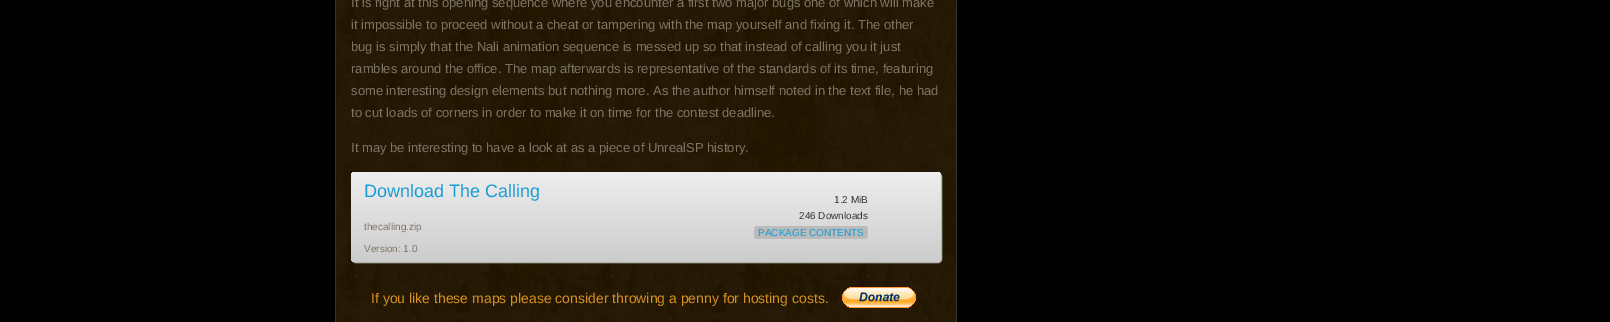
%!PS
<< /PageSize [1610 322] /PageUsesTransparency true >> setpagedevice
/rgb { 3 { 255 div 3 1 roll } repeat setrgbcolor } def
/font { [ exch dup neg 0 0 3 -1 roll 0 0 ] selectfont } def
/alpha { dup .setfillconstantalpha .setstrokeconstantalpha } def
/roundrect { 5 dict begin { /r /h /w /y /x } { exch def } forall
  x r add y moveto x w add y 2 copy h add r arct x w add y h add x 1 index r arct
  x y h add x y r arct x y 2 copy exch w add exch r arct closepath end } def
/shadow { 12 dict begin { /a /b /q /h /w /y /x } { exch def } forall gsave /was 0 def
  9 -2 -9 { dup b mul 4 div /e exch def 1 sub .425 mul 2.718 exch exp 1 add a .99 .min exch div /now exch def
    1 1 now sub 1 was sub div sub alpha /was now def
    w h .min e 2 mul add 0 gt { x e sub y e sub w e 2 mul add h e 2 mul add
      q e add b .6 mul add w h .min 2 div e add .min 0 .max roundrect fill } if } for grestore end } def
/picture { 5 dict begin { /h /w /y /x /name } { exch def } forall
  gsave x y translate w h scale
  w h 8 [w 0 0 h 0 0] name (r) file false 3 colorimage grestore end } def
0 .pushpdf14devicefilter
0 322 translate 1 -1 scale
4 setmiterlimit
0 0 0 rgb
0 0 1610 322 rectfill
(img/1.rgb) 336 0 620 322 picture
51 51 51 rgb
956 0 1 322 rectfill
335 0 1 322 rectfill
204 204 204 rgb
352 173 590 90 4 0.5 1 shadow
gsave 351 172 590 90 4 roundrect clip newpath
<< /ShadingType 2 /ColorSpace /DeviceRGB /Coords [646 172 646 262] /Extend [true true] /Function << /FunctionType 2 /Domain [0 1] /C0 [0.933 0.933 0.933] /C1 [0.8 0.8 0.8] /N 1 >> >> shfill grestore
187 187 187 rgb
754 226 114 13 3 roundrect fill
(img/2.rgb) 842 287 74 21 picture
/LiberationSans-Regular 13 font
125 116 102 rgb
[
  [(It is right at this opening sequence where you encounter a first two major bugs one of which will make) 351 7]
  [(it impossible to proceed without a cheat or tampering with the map yourself and fixing it. The other) 351 29]
  [(bug is simply that the Nali animation sequence is messed up so that instead of calling you it just) 351 51]
  [(rambles around the office. The map afterwards is representative of the standards of its time, featuring) 351 73]
  [(some interesting design elements but nothing more. As the author himself noted in the text file, he had) 351 95]
  [(to cut loads of corners in order to make it on time for the contest deadline.) 351 117]
  [(It may be interesting to have a look at as a piece of UnrealSP history.) 351 152]
] { aload pop moveto show } forall
/LiberationSans-Regular 18 font
24 156 214 rgb
364 197 moveto (Download The Calling) show
/LiberationSans-Regular 10 font
125 116 102 rgb
364 230 moveto (thecalling.zip) show
364 252 moveto (Version: 1.0) show
51 51 51 rgb
834 203 moveto (1.2 MiB) show
799 219 moveto (246 Downloads) show
24 156 214 rgb
758 236 moveto (PACKAGE CONTENTS) show
/LiberationSans-Regular 14 font
214 144 34 rgb
371 303 moveto (If you like these maps please consider throwing a penny for hosting costs.) show
.poppdf14devicefilter showpage
